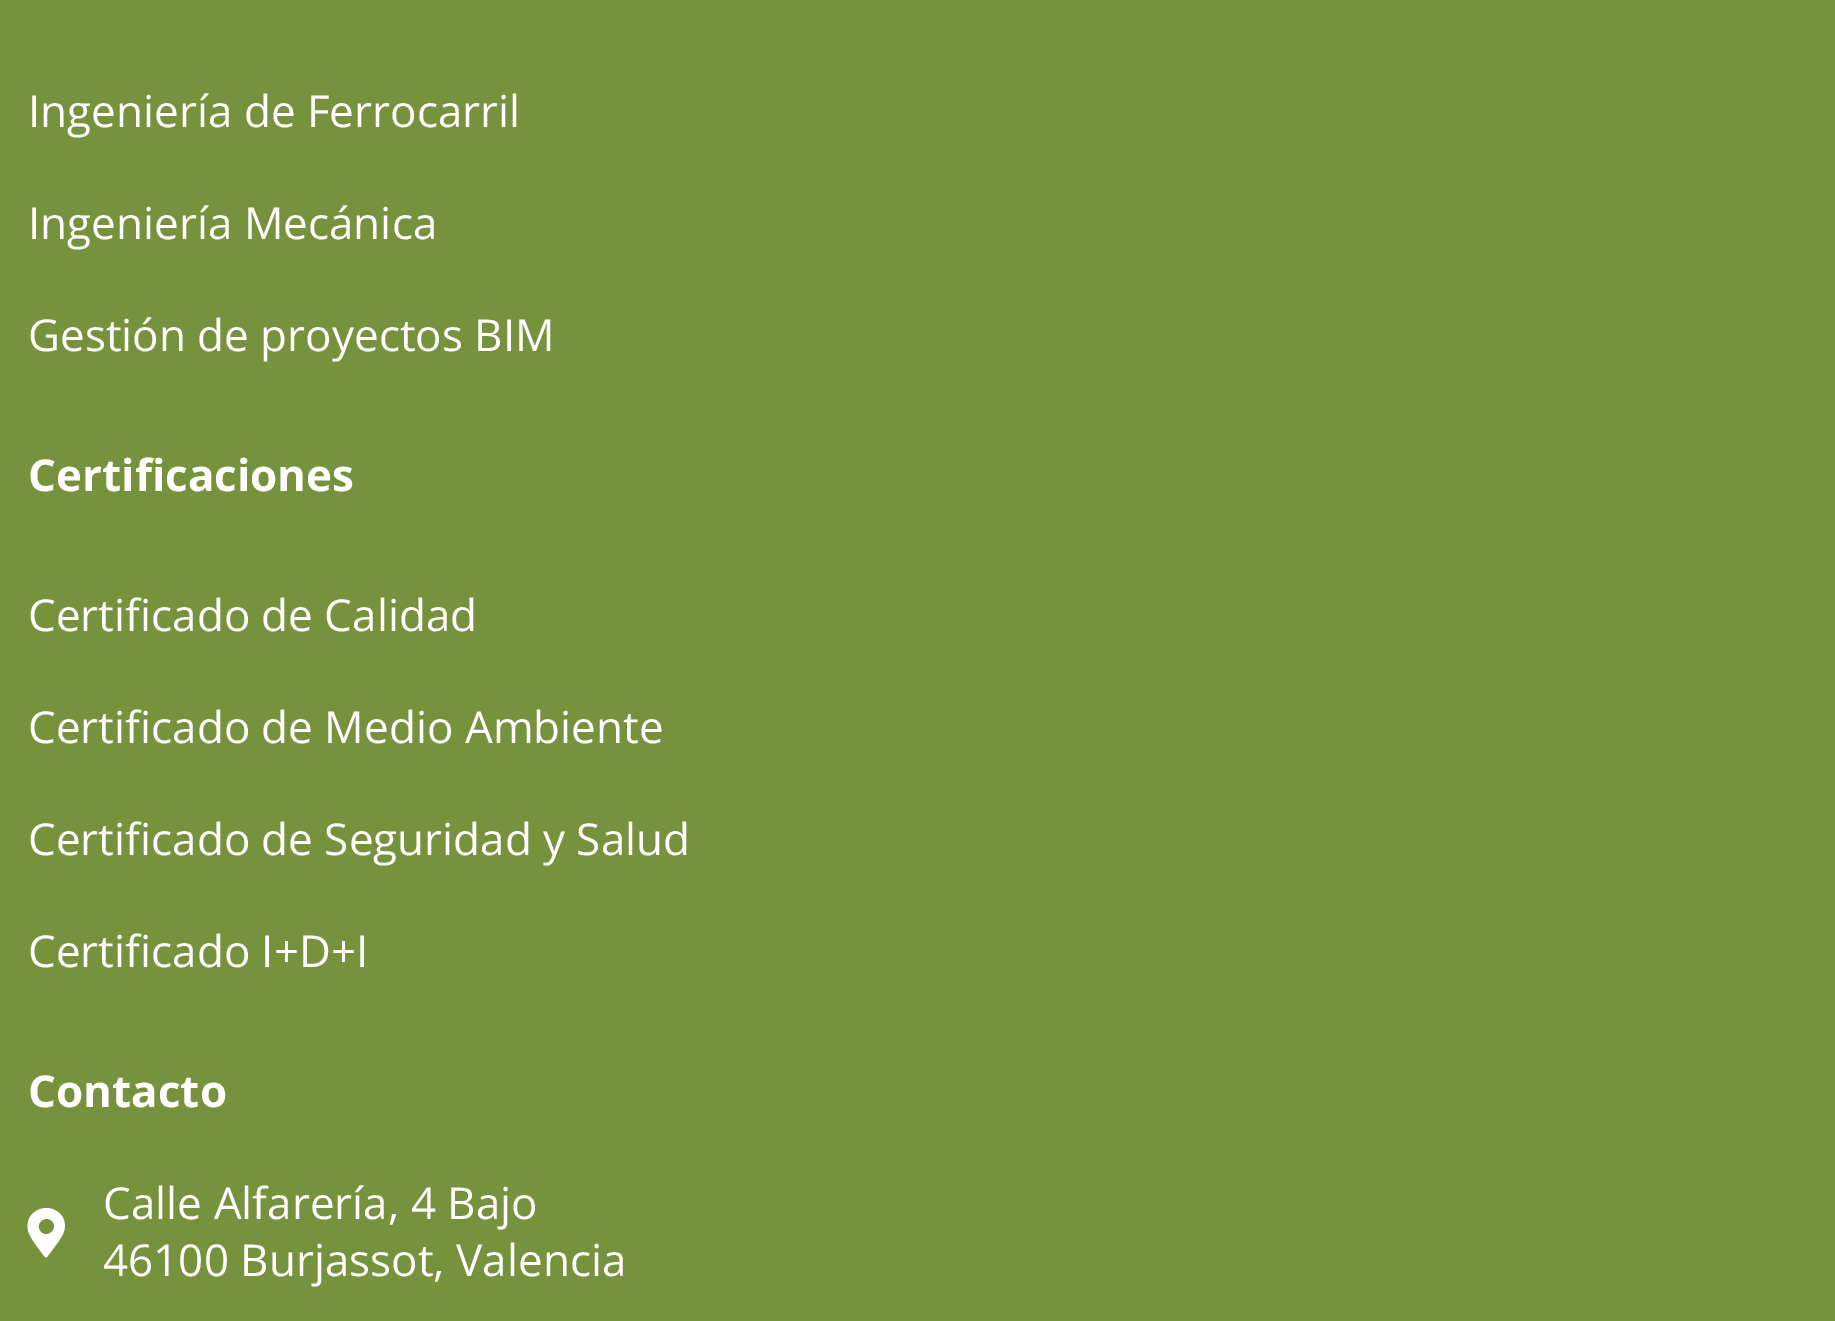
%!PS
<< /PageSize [1835 1321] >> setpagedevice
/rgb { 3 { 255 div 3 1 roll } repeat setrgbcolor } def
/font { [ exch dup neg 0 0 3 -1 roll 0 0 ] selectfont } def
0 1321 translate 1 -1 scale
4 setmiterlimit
118 146 60 rgb
0 0 1835 1321 rectfill
255 255 255 rgb
44 1256 moveto 40 1250 29 1237 28 1230 curveto 24 1210 50 1200 62 1216 curveto 70 1229 60 1239 53 1249 curveto 47 1257 lineto 46 1258 45 1257 44 1256 curveto closepath 41 1232 moveto 48 1239 59 1228 52 1221 curveto 44 1214 34 1225 41 1232 curveto closepath fill
/OpenSans-Regular 44 font
[
  [(Ingeniería de Ferrocarril) 28 127]
  [(Ingeniería Mecánica) 28 239]
  [(Gestión de proyectos BIM) 28 351]
] { aload pop moveto show } forall
/OpenSans-Bold 44 font
28 491 moveto (Certificaciones) show
/OpenSans-Regular 44 font
[
  [(Certificado de Calidad) 28 631]
  [(Certificado de Medio Ambiente) 28 743]
  [(Certificado de Seguridad y Salud) 28 855]
  [(Certificado I+D+I) 28 967]
] { aload pop moveto show } forall
/OpenSans-Bold 44 font
28 1107 moveto (Contacto) show
/OpenSans-Regular 44 font
103 1219 moveto (Calle Alfarería, 4 Bajo) show
103 1276 moveto (46100 Burjassot, Valencia) show
showpage
